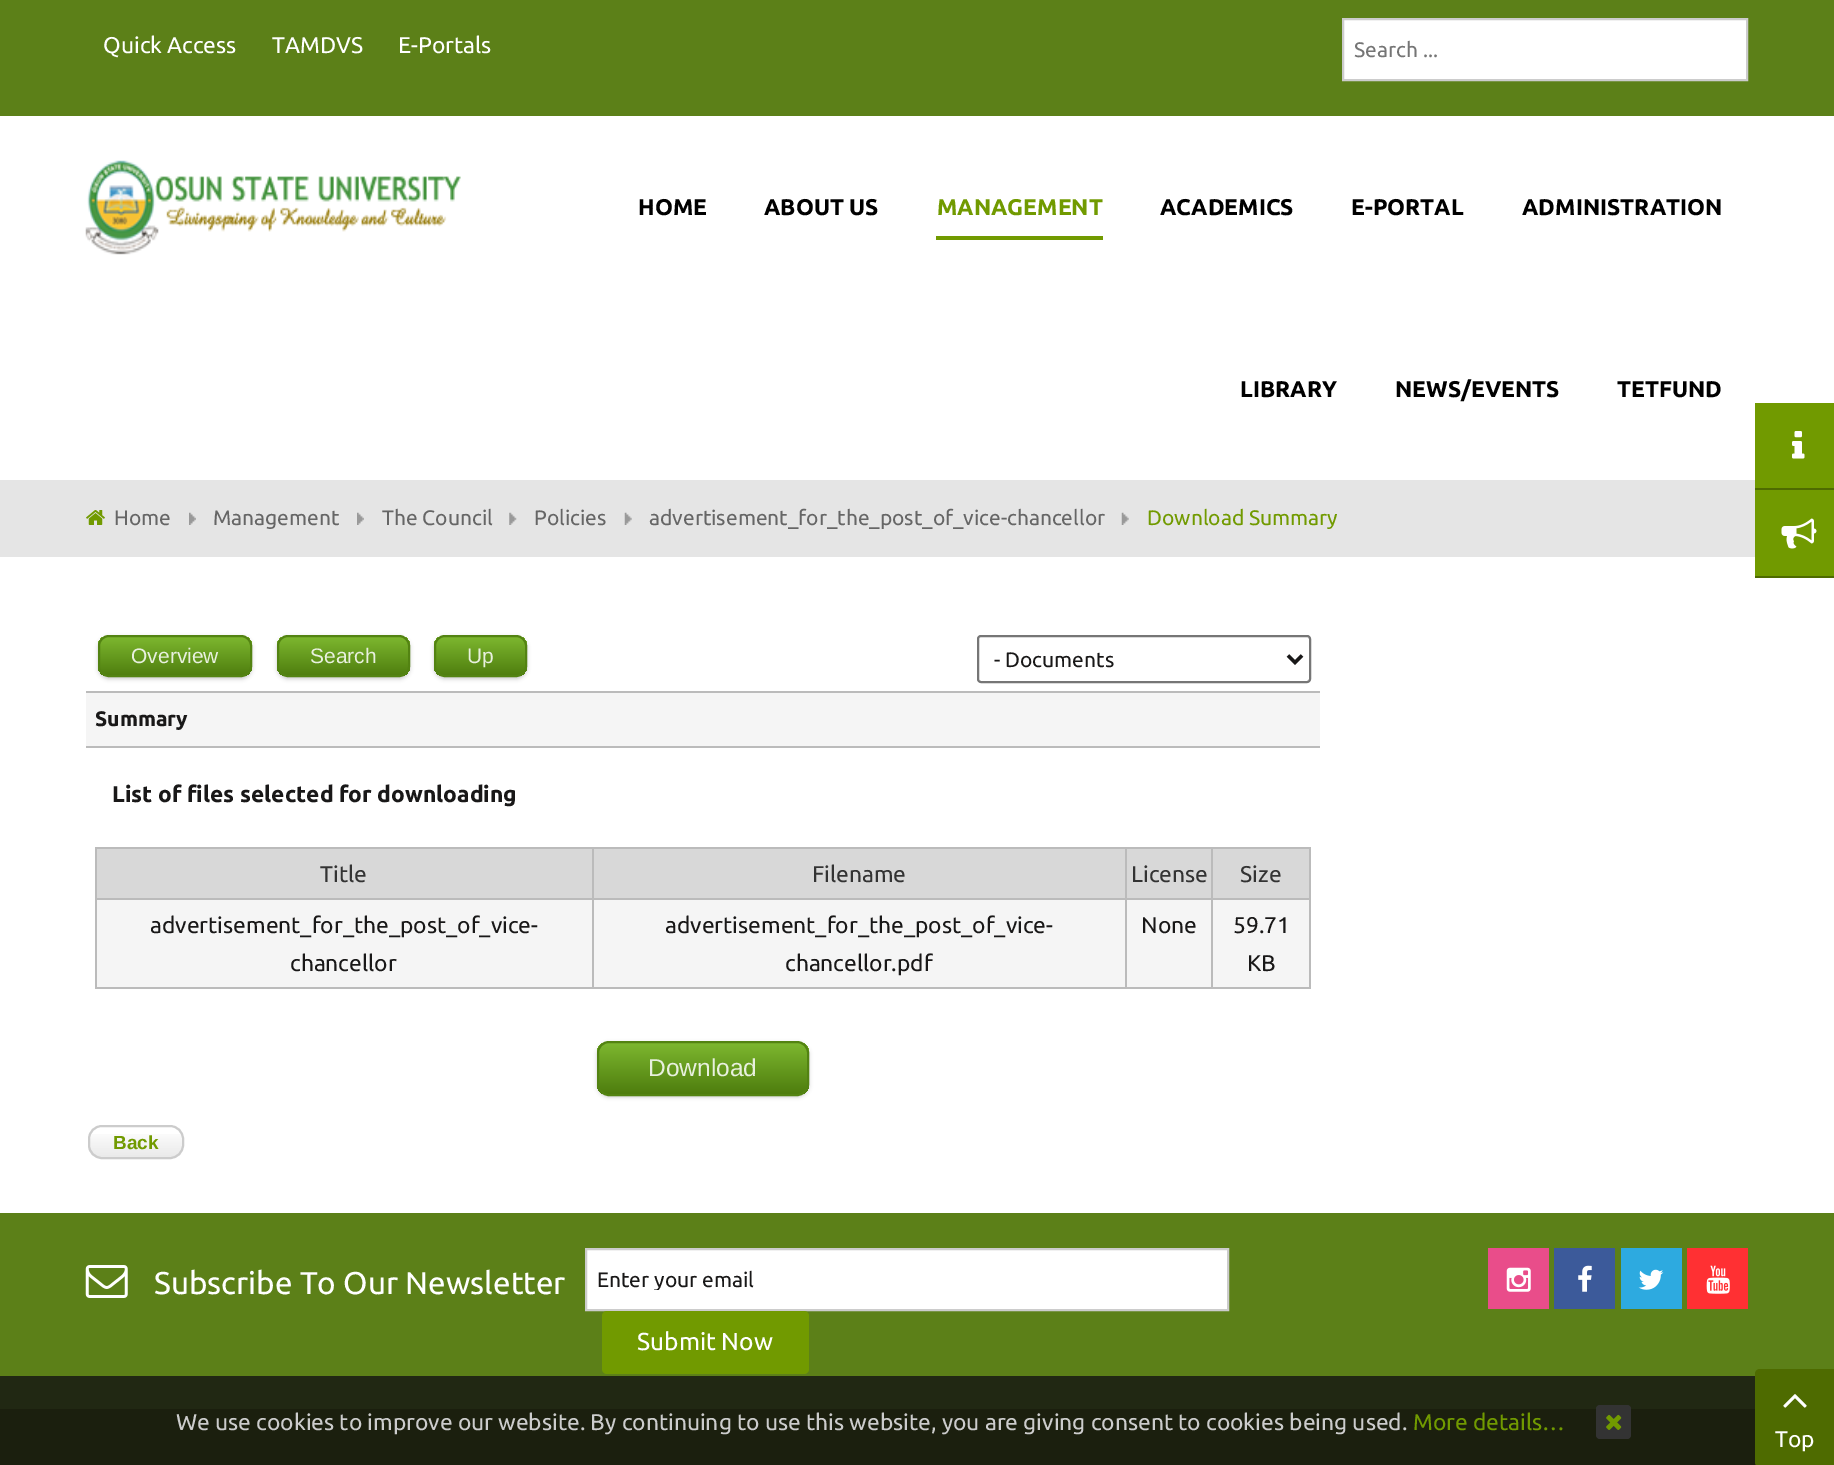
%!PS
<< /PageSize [1834 1465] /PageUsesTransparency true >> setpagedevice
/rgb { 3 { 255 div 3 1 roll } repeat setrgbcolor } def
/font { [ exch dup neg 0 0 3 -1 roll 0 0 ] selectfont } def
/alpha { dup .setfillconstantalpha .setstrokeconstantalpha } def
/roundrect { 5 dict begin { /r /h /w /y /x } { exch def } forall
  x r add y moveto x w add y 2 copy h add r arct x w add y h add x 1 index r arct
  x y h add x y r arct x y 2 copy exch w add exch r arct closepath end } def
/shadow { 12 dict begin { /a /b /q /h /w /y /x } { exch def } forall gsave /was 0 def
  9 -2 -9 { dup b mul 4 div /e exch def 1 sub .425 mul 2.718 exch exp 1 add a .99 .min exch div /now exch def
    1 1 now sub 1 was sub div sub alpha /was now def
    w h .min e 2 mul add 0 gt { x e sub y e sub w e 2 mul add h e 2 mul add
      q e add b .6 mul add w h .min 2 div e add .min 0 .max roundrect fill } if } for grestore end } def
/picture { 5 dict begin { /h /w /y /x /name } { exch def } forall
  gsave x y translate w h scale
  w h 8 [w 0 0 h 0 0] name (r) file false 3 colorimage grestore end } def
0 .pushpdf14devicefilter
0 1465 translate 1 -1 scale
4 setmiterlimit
255 255 255 rgb
0 0 1834 1465 rectfill
92 128 24 rgb
0 0 1834 116 rectfill
255 255 255 rgb
1343 19 moveto 1747 19 lineto 1747 80 lineto 1343 80 lineto closepath gsave fill grestore
204 204 204 rgb
2 setlinewidth
stroke
(img/1.rgb) 85 160 376 95 picture
113 154 0 rgb
936 236 167 4 rectfill
229 229 229 rgb
0 480 1755 77 rectfill
(img/2.rgb) 86 510 19 15 picture
(img/3.rgb) 189 512 7 13 picture
(img/3.rgb) 357 512 7 13 picture
(img/4.rgb) 509 512 8 13 picture
(img/5.rgb) 624 512 8 13 picture
(img/5.rgb) 1121 512 8 13 picture
113 154 0 rgb
1755 403 79 85 rectfill
78 107 0 rgb
1755 488 79 2 rectfill
(img/6.rgb) 1792 431 13 28 picture
113 154 0 rgb
1755 490 79 86 rectfill
78 107 0 rgb
1755 576 79 2 rectfill
(img/7.rgb) 1781 518 36 31 picture
187 187 187 rgb
86 691 1234 2 rectfill
0 0 0 rgb
98 637 154 42 11 2 0.2 shadow
gsave
98 635 154 42 11 roundrect clip newpath
gsave 98 637 moveto 252 637 lineto 252 676 lineto 98 676 lineto closepath clip newpath
<< /ShadingType 2 /ColorSpace /DeviceRGB /Coords [175 637 175 676] /Extend [true true] /Function << /FunctionType 2 /Domain [0 1] /C0 [0.49 0.718 0.184] /C1 [0.306 0.49 0.055] /N 1 >> >> shfill grestore
grestore
83 131 18 rgb
99 636 152 40 10 roundrect stroke
0 0 0 rgb
277 637 133 42 11 2 0.2 shadow
gsave
277 635 133 42 11 roundrect clip newpath
gsave 277 637 moveto 410 637 lineto 410 676 lineto 277 676 lineto closepath clip newpath
<< /ShadingType 2 /ColorSpace /DeviceRGB /Coords [343 637 343 676] /Extend [true true] /Function << /FunctionType 2 /Domain [0 1] /C0 [0.49 0.718 0.184] /C1 [0.306 0.49 0.055] /N 1 >> >> shfill grestore
grestore
83 131 18 rgb
278 636 131 40 10 roundrect stroke
0 0 0 rgb
434 637 93 42 11 2 0.2 shadow
gsave
434 635 93 42 11 roundrect clip newpath
gsave 434 637 moveto 527 637 lineto 527 676 lineto 434 676 lineto closepath clip newpath
<< /ShadingType 2 /ColorSpace /DeviceRGB /Coords [480 637 480 676] /Extend [true true] /Function << /FunctionType 2 /Domain [0 1] /C0 [0.49 0.718 0.184] /C1 [0.306 0.49 0.055] /N 1 >> >> shfill grestore
grestore
83 131 18 rgb
435 636 91 40 10 roundrect stroke
118 118 118 rgb
978 636 332 46 3 roundrect stroke
25 24 24 rgb
3.5 setlinewidth
1288 655.5 moveto 1295 662.5 lineto 1302 655.5 lineto stroke
[
  [86 693 1234 53 245 245 245]
  [86 746 1234 2 187 187 187]
  [97 900 1212 87 245 245 245]
  [95 847 1216 2 187 187 187]
  [1309 847 2 142 187 187 187]
  [95 987 1216 2 187 187 187]
  [95 847 2 142 187 187 187]
  [97 849 1212 49 216 216 216]
  [1211 898 100 2 187 187 187]
  [1211 898 2 91 187 187 187]
  [1125 898 88 2 187 187 187]
  [1125 898 2 91 187 187 187]
  [592 898 535 2 187 187 187]
  [592 898 2 91 187 187 187]
  [95 898 498 2 187 187 187]
  [592 847 2 53 187 187 187]
  [1125 847 2 53 187 187 187]
  [1211 847 2 53 187 187 187]
] { aload pop rgb rectfill } forall
0 0 0 rgb
597 1043 212 54 12 2 0.2 shadow
gsave
597 1041 212 55 12 roundrect clip newpath
gsave 597 1043 moveto 809 1043 lineto 809 1094 lineto 597 1094 lineto closepath clip newpath
<< /ShadingType 2 /ColorSpace /DeviceRGB /Coords [703 1043 703 1094] /Extend [true true] /Function << /FunctionType 2 /Domain [0 1] /C0 [0.49 0.718 0.184] /C1 [0.306 0.49 0.055] /N 1 >> >> shfill grestore
grestore
83 131 18 rgb
2 setlinewidth
598 1042 210 53 11 roundrect stroke
(img/8.rgb) 88 1134 96 25 picture
204 204 204 rgb
89 1126 94 32 13 roundrect stroke
92 128 24 rgb
0 1213 1834 163 rectfill
33 40 19 rgb
0 1376 1755 33 rectfill
(img/9.rgb) 85 1265 43 33 picture
255 255 255 rgb
586 1249 moveto 1228 1249 lineto 1228 1310 lineto 586 1310 lineto closepath gsave fill grestore
204 204 204 rgb
stroke
113 154 0 rgb
602 1311 207 63 5 roundrect fill
233 77 138 rgb
1488 1248 61 61 rectfill
(img/10.rgb) 1506 1267 25 25 picture
60 90 154 rgb
1554 1248 61 61 rectfill
(img/11.rgb) 1578 1265 14 27 picture
45 170 224 rgb
1621 1248 61 61 rectfill
(img/12.rgb) 1638 1269 26 21 picture
255 48 51 rgb
1687 1248 61 61 rectfill
(img/13.rgb) 1706 1265 24 29 picture
27 31 14 rgb
0 1409 1756 56 rectfill
78 107 0 rgb
1760 1369 moveto 1834 1369 lineto 1834 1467 lineto 1760 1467 lineto 1757 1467 1755 1465 1755 1462 curveto 1755 1374 lineto 1755 1371 1757 1369 1760 1369 curveto closepath fill
(img/14.rgb) 1783 1394 24 14 picture
51 51 51 rgb
1596 1405 35 34 4 roundrect fill
(img/15.rgb) 1606 1414 16 16 picture
/Ubuntu-Regular 22.75 font
255 255 255 rgb
[
  [(Quick Access) 103 53]
  [(TAMDVS) 272 53]
  [(E-Portals) 398 53]
] { aload pop moveto show } forall
/Ubuntu-Regular 21 font
117 117 117 rgb
1354 57 moveto (Search ...) show
/Ubuntu-Bold 22.75 font
0 0 0 rgb
638 215 moveto (HOME) show
764 215 moveto (ABOUT US) show
113 154 0 rgb
937 215 moveto (MANAGEMENT) show
0 0 0 rgb
[
  [(ACADEMICS) 1160 215]
  [(E-PORTAL) 1351 215]
  [(ADMINISTRATION) 1522 215]
  [(LIBRARY) 1240 397]
  [(NEWS/EVENTS) 1395 397]
  [(TETFUND) 1617 397]
] { aload pop moveto show } forall
/Ubuntu-Regular 21 font
102 102 102 rgb
[
  [(Home) 114 525]
  [(Management) 213 525]
  [(The Council) 382 525]
  [(Policies) 534 525]
  [(advertisement_for_the_post_of_vice-chancellor) 649 525]
] { aload pop moveto show } forall
113 154 0 rgb
1147 525 moveto (Download Summary) show
/LiberationSans-Regular 21 font
232 240 222 rgb
[
  [(Overview) 131 663]
  [(Search) 310 663]
  [(Up) 467 663]
] { aload pop moveto show } forall
/Ubuntu-Regular 21 font
25 24 24 rgb
994 667 moveto (- Documents) show
/Ubuntu-Bold 21 font
95 726 moveto (Summary) show
/Ubuntu-Bold 22.75 font
112 802 moveto (List of files selected for downloading) show
/Ubuntu-Regular 22.75 font
51 51 51 rgb
[
  [(Title) 320 882]
  [(Filename) 812 882]
  [(License) 1131 882]
  [(Size) 1240 882]
] { aload pop moveto show } forall
25 24 24 rgb
[
  [(advertisement_for_the_post_of_vice-) 150 933]
  [(chancellor) 290 971]
  [(advertisement_for_the_post_of_vice-) 665 933]
  [(chancellor.pdf) 785 971]
  [(None) 1141 933]
  [(59.71) 1233 933]
  [(KB) 1247 971]
] { aload pop moveto show } forall
/LiberationSans-Regular 24.5 font
232 240 222 rgb
648 1076 moveto (Download) show
/LiberationSans-Bold 19 font
113 154 0 rgb
113 1149 moveto (Back) show
/Ubuntu-Regular 31.5 font
255 255 255 rgb
154 1294 moveto (Subscribe To Our Newsletter) show
gsave
597 1267 619 23 rectclip
/Ubuntu-Regular 21 font
25 24 24 rgb
597 1287 moveto (Enter your email) show
grestore
/Ubuntu-Regular 24.5 font
637 1350 moveto (Submit Now) show
/Ubuntu-Regular 22.75 font
1775 1447 moveto (Top) show
204 204 204 rgb
176 1430 moveto (We use cookies to improve our website. By continuing to use this website, you are giving consent to cookies being used.) show
113 154 0 rgb
1413 1430 moveto (More details…) show
.poppdf14devicefilter showpage
